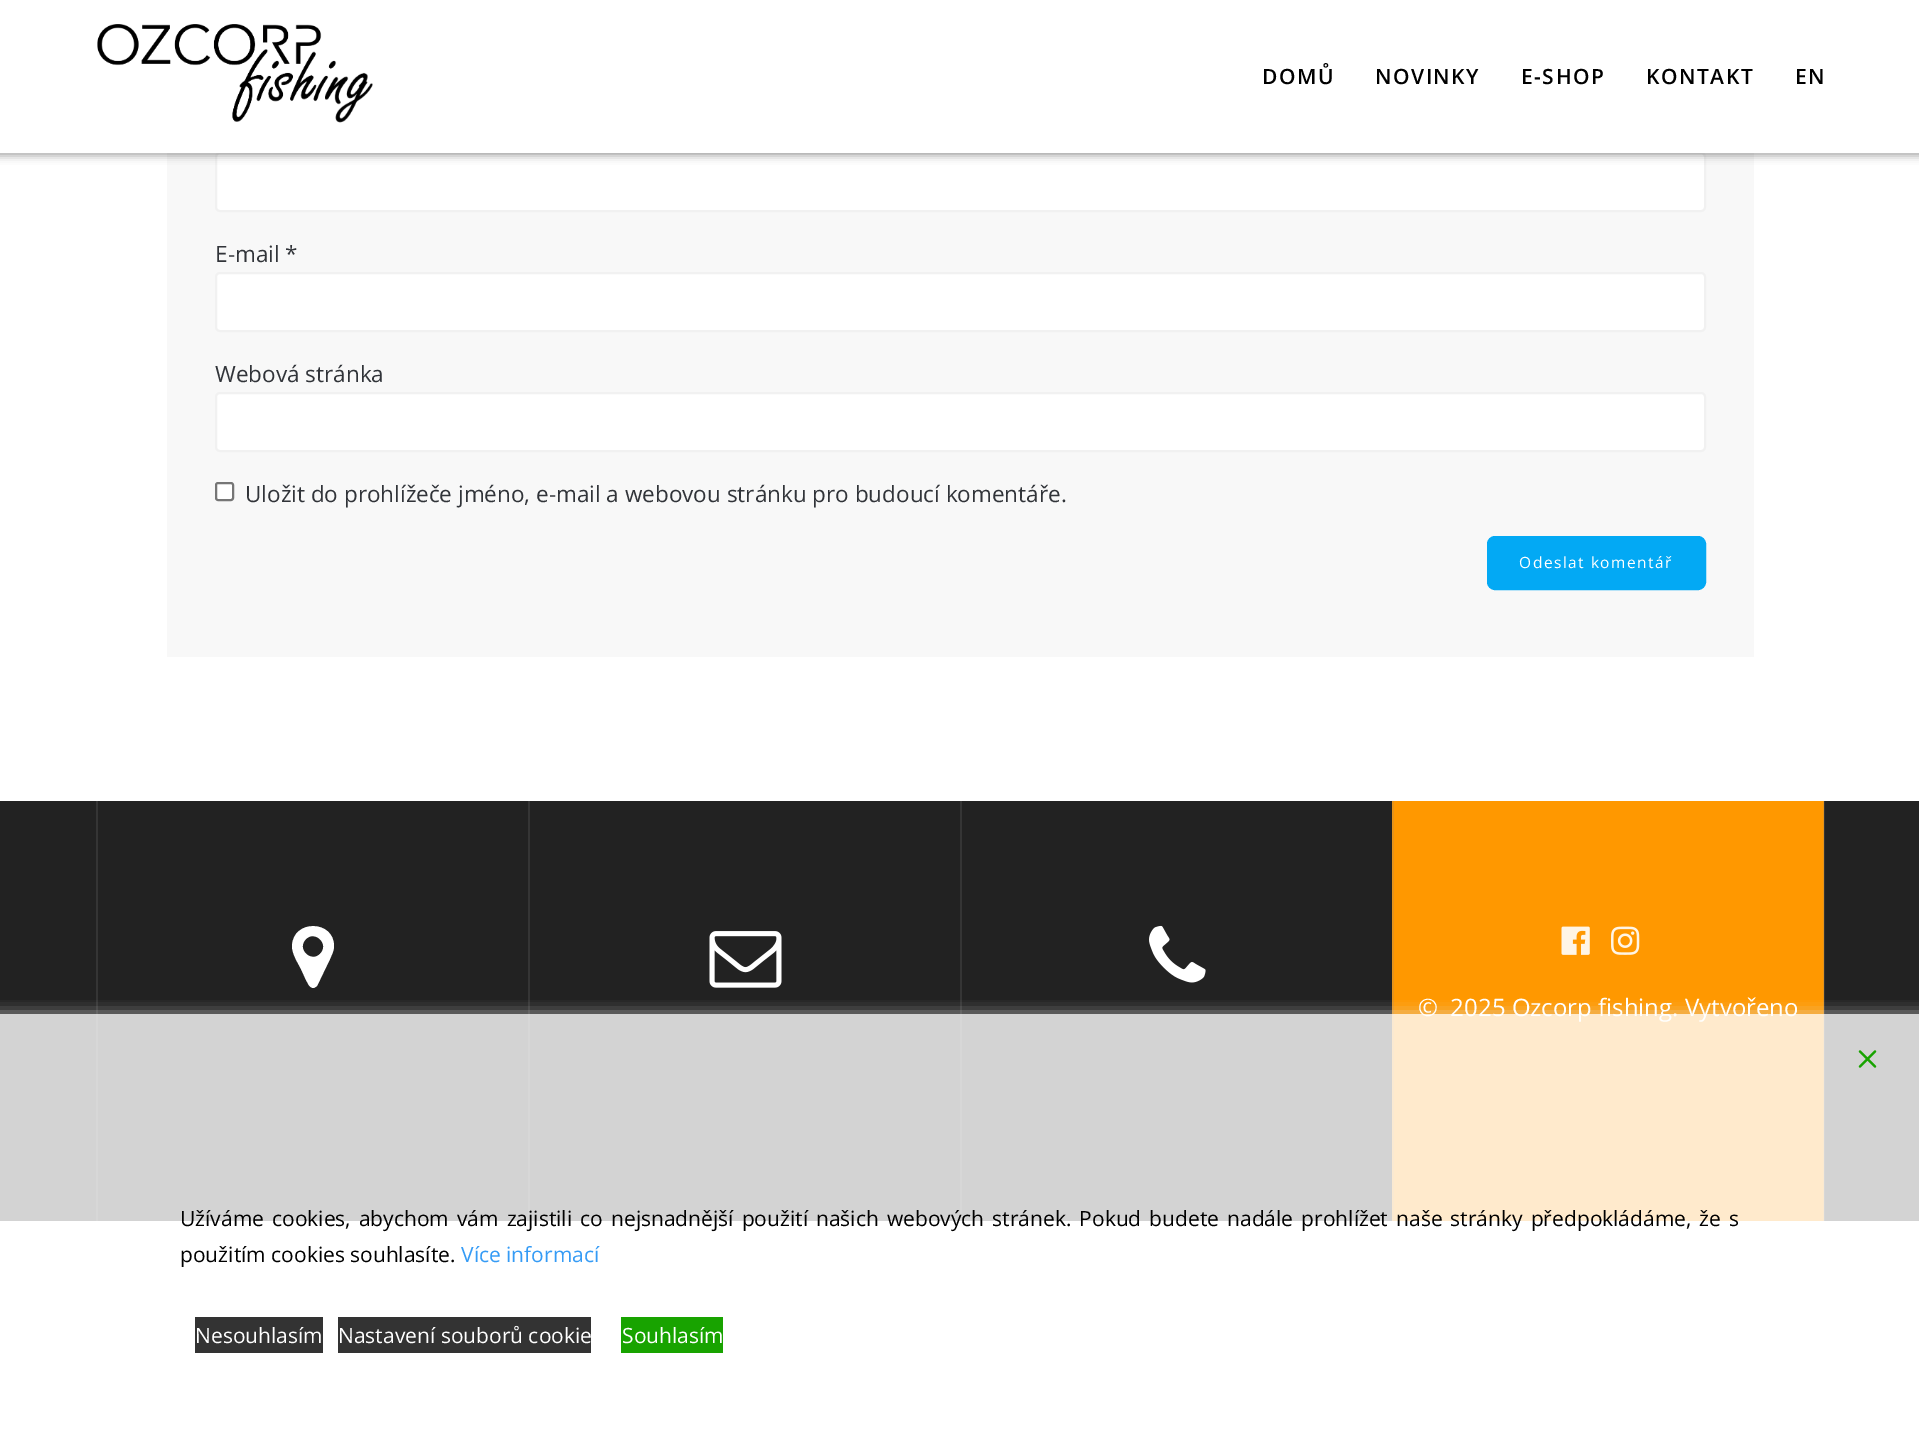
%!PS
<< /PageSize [1919 1435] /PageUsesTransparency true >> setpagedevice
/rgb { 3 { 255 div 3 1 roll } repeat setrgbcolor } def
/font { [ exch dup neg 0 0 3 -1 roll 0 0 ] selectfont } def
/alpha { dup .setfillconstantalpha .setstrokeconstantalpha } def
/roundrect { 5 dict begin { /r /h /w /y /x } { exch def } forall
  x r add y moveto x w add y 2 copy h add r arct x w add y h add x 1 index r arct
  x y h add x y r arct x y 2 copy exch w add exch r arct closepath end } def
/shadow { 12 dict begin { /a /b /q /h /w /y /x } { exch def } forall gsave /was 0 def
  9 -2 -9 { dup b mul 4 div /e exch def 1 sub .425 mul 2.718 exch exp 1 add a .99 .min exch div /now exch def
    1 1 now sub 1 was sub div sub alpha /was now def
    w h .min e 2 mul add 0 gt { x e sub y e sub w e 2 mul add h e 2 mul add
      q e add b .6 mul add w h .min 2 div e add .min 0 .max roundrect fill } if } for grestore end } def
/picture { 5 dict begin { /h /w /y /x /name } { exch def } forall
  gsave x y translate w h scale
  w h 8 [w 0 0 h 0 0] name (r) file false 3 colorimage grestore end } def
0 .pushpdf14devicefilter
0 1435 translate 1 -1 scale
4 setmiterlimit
255 255 255 rgb
0 0 1919 1435 rectfill
248 248 248 rgb
167 153 1587 504 rectfill
255 255 255 rgb
216 153 1489 58 4 roundrect gsave fill grestore
241 241 241 rgb
2 setlinewidth
stroke
0 0 0 rgb
-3 -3 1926 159 0 4 0.33 shadow
255 255 255 rgb
0 0 1919 153 rectfill
(img/1.rgb) 97 24 276 99 picture
216 273 1489 58 4 roundrect gsave fill grestore
241 241 241 rgb
stroke
255 255 255 rgb
216 393 1489 58 4 roundrect gsave fill grestore
241 241 241 rgb
stroke
255 255 255 rgb
216 483 17 17 2 roundrect gsave fill grestore
118 118 118 rgb
stroke
3 169 244 rgb
1488.5 537.5 216 51 6.5 roundrect gsave fill grestore
3 setlinewidth
stroke
[
  [0 801 1919 420 34 34 34]
  [1824 801 1 420 53 53 53]
  [96 801 2 420 53 53 53]
] { aload pop rgb rectfill } forall
255 255 255 rgb
320 954 moveto 330 944 315 930 306 939 curveto 296 949 311 963 320 954 curveto closepath 334 946 moveto 334 951 332 954 330 959 curveto 317 986 lineto 316 987 315 987 314 988 curveto 309 988 308 983 306 980 curveto 301 969 lineto 298 963 292 954 292 946 curveto 293 919 334 920 334 946 curveto closepath fill
53 53 53 rgb
528 801 2 420 rectfill
(img/2.rgb) 709 931 73 57 picture
960 801 2 420 rectfill
(img/3.rgb) 1149 925 57 58 picture
[
  [1394 801 429 420 255 152 0]
  [1823 801 1 420 230 147 26]
  [1392 801 2 420 230 147 26]
] { aload pop rgb rectfill } forall
(img/4.rgb) 1561 926 29 29 picture
(img/5.rgb) 1611 926 29 29 picture
gsave
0 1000 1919 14 rectclip
221 221 221 rgb
-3 1016 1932 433 0 8 1 shadow
grestore
[
  [195 1317 128 36 51 51 51]
  [338 1317 253 36 51 51 51]
  [621 1317 102 36 24 163 0]
] { aload pop rgb rectfill } forall
/OpenSans-SemiBold 21 font
0 0 0 rgb
1262 84 moveto 1.5 0 (DOMŮ) ashow
1375 84 moveto 1.5 0 (NOVINKY) ashow
1521 84 moveto 1.5 0 (E-SHOP) ashow
1646 84 moveto 1.5 0 (KONTAKT) ashow
1795 84 moveto 1.5 0 (EN) ashow
/OpenSans-Regular 22.5 font
49 52 57 rgb
[
  [(E-mail *) 215 262]
  [(Webová stránka) 215 382]
  [(Uložit do prohlížeče jméno, e-mail a webovou stránku pro budoucí komentáře.) 245 502]
] { aload pop moveto show } forall
/OpenSans-Regular 15.5 font
255 255 255 rgb
1519 568 moveto 1.5 0 (Odeslat komentář) ashow
/OpenSans-Regular 24 font
1418 1016 moveto (©  2025 Ozcorp fishing. Vytvořeno) show
0.8 alpha
0 1014 1919 207 rectfill
1 alpha
(img/6.rgb) 1858 1050 19 18 picture
/OpenSans-Regular 21 font
0 0 0 rgb
180 1226 moveto 2.6 0 32 (Užíváme cookies, abychom vám zajistili co nejsnadnější použití našich webových stránek. Pokud budete nadále prohlížet naše stránky předpokládáme, že s) widthshow
180 1262 moveto (použitím cookies souhlasíte.) show
53 155 245 rgb
461 1262 moveto (Více informací) show
255 255 255 rgb
[
  [(Nesouhlasím) 195 1343]
  [(Nastavení souborů cookie) 338 1343]
  [(Souhlasím) 622 1343]
] { aload pop moveto show } forall
.poppdf14devicefilter showpage
